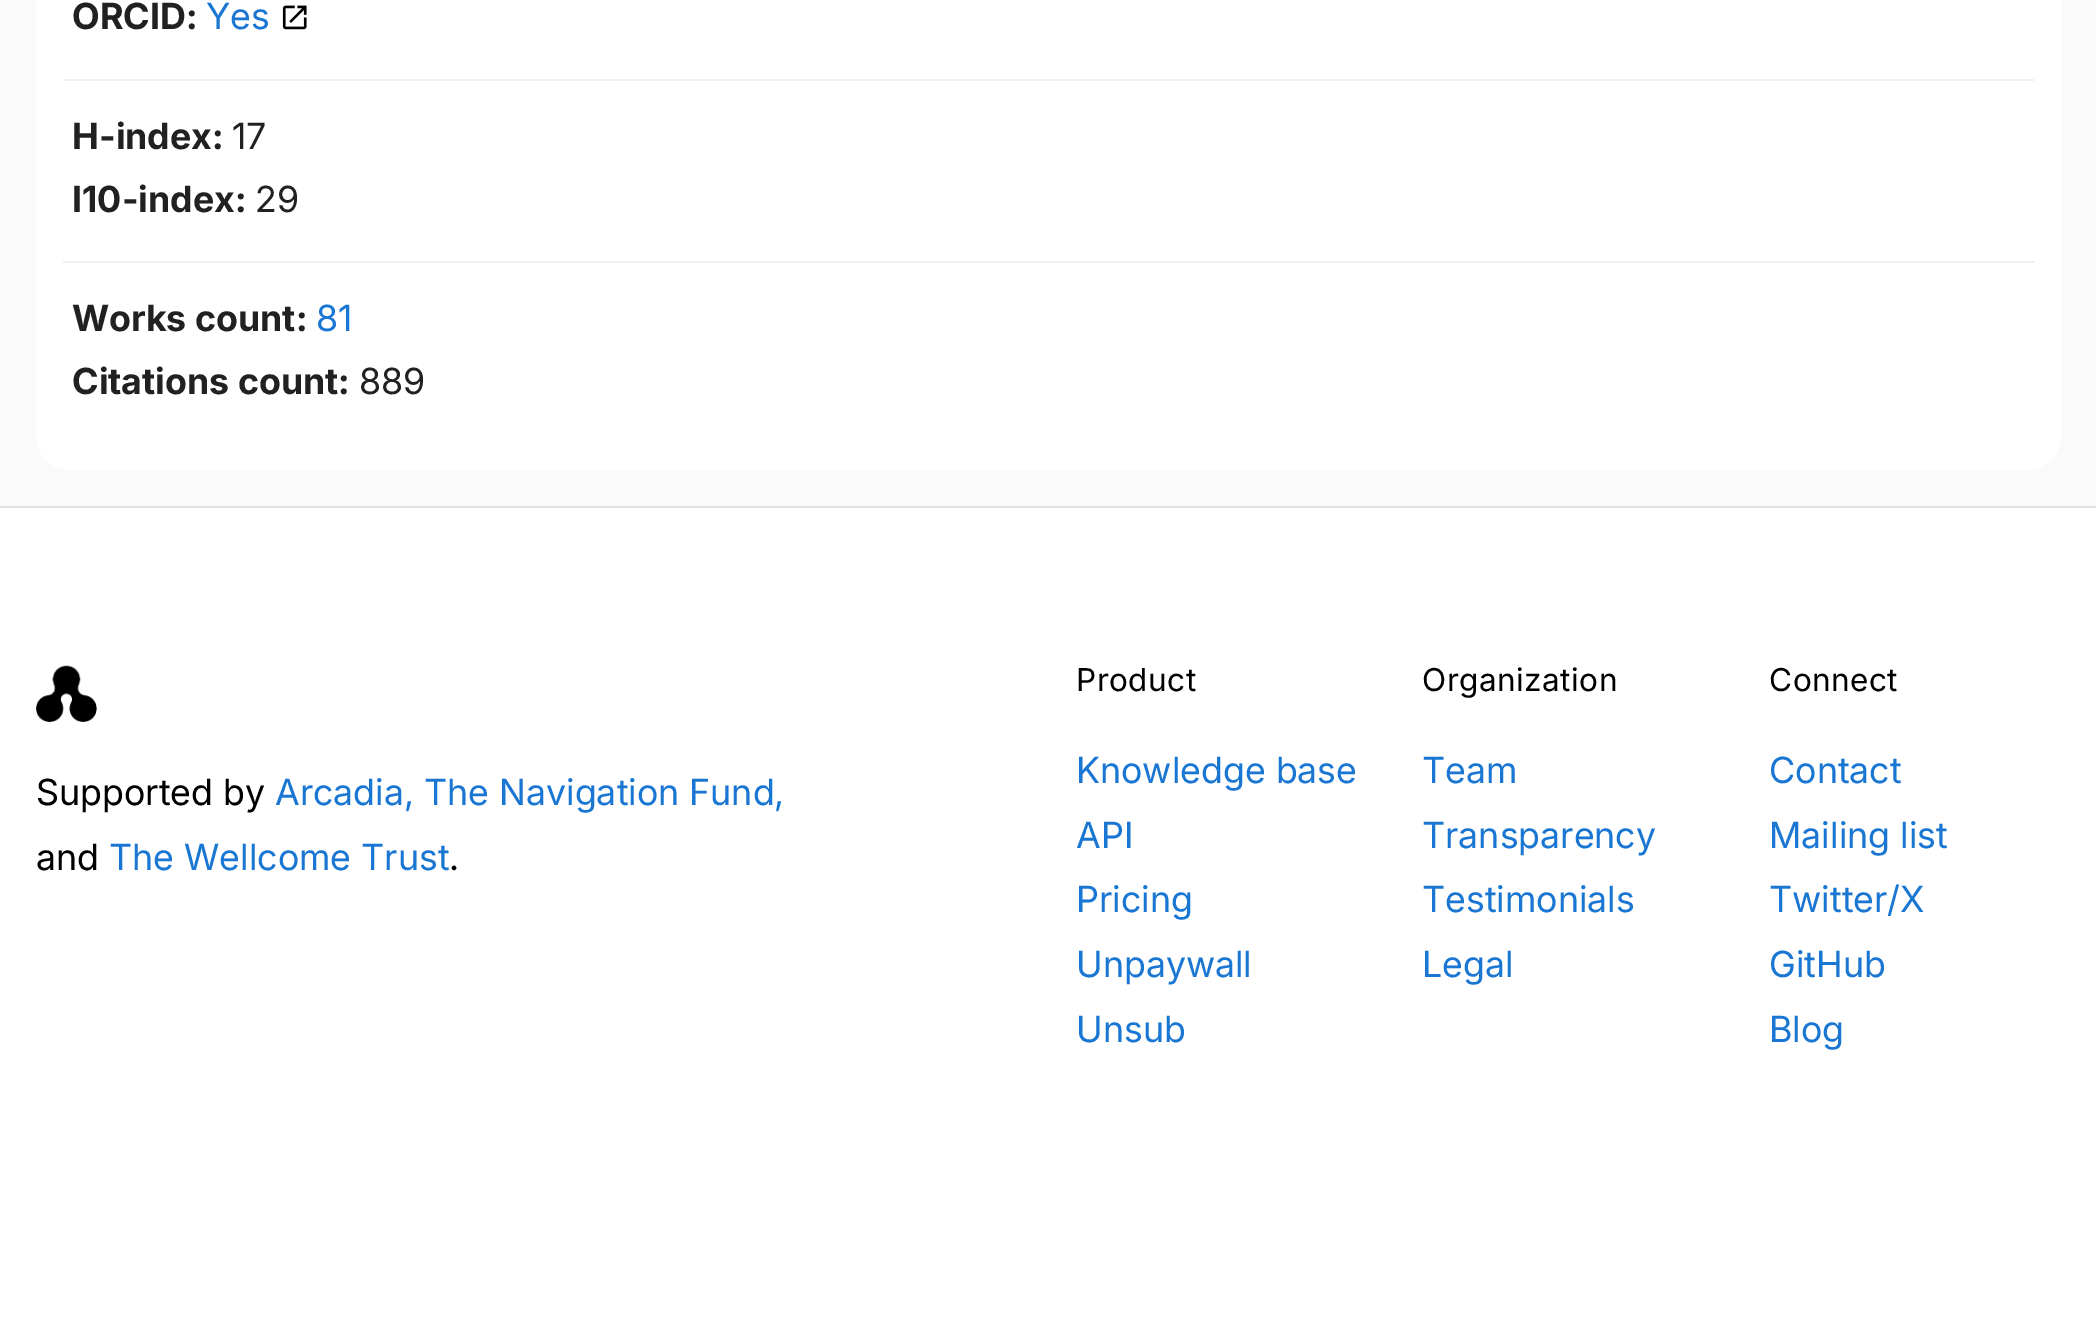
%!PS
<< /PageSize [2096 1322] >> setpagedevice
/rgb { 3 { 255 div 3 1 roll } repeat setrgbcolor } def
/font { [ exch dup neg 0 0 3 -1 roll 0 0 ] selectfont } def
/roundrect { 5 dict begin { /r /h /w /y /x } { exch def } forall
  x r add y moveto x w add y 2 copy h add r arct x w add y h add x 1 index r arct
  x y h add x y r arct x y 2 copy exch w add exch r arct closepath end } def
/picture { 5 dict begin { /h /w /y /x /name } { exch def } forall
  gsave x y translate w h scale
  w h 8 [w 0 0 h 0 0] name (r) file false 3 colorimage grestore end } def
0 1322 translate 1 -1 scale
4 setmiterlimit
255 255 255 rgb
0 0 2096 1322 rectfill
250 250 250 rgb
0 0 2096 506 rectfill
255 255 255 rgb
36 -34 2025 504 34 roundrect fill
(img/1.rgb) 282 5 25 25 picture
[
  [63 79 1971 2 240 240 240]
  [63 261 1971 2 240 240 240]
  [0 506 2096 2 224 224 224]
] { aload pop rgb rectfill } forall
(img/2.rgb) 36 665 61 57 picture
/Inter-Bold 36 font
33 33 33 rgb
72 29 moveto (ORCID:) show
/Inter-Regular 36 font
25 118 210 rgb
206 29 moveto (Yes) show
/Inter-Bold 36 font
33 33 33 rgb
72 149 moveto (H-index:) show
/Inter-Regular 36 font
232 149 moveto (17) show
/Inter-Bold 36 font
72 212 moveto (I10-index:) show
/Inter-Regular 36 font
255 212 moveto (29) show
/Inter-Bold 36 font
72 331 moveto (Works count:) show
/Inter-Regular 36 font
25 118 210 rgb
316 331 moveto (81) show
/Inter-Bold 36 font
33 33 33 rgb
72 394 moveto (Citations count:) show
/Inter-Regular 36 font
359 394 moveto (889) show
0 0 0 rgb
36 805 moveto (Supported by) show
25 118 210 rgb
275 805 moveto (Arcadia, The Navigation Fund,) show
0 0 0 rgb
36 870 moveto (and) show
25 118 210 rgb
109 870 moveto (The Wellcome Trust) show
0 0 0 rgb
449 870 moveto (.) show
/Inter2-Regular 31.5 font
1076 691 moveto 0.5 0 (Product) ashow
/Inter-Regular 36 font
25 118 210 rgb
[
  [(Knowledge base) 1076 783]
  [(API) 1076 848]
  [(Pricing) 1076 912]
  [(Unpaywall) 1076 977]
  [(Unsub) 1076 1042]
] { aload pop moveto show } forall
/Inter2-Regular 31.5 font
0 0 0 rgb
1422 691 moveto 0.5 0 (Organization) ashow
/Inter-Regular 36 font
25 118 210 rgb
[
  [(Team) 1422 783]
  [(Transparency) 1422 848]
  [(Testimonials) 1422 912]
  [(Legal) 1422 977]
] { aload pop moveto show } forall
/Inter2-Regular 31.5 font
0 0 0 rgb
1769 691 moveto 0.5 0 (Connect) ashow
/Inter-Regular 36 font
25 118 210 rgb
[
  [(Contact) 1769 783]
  [(Mailing list) 1769 848]
  [(Twitter/X) 1769 912]
  [(GitHub) 1769 977]
  [(Blog) 1769 1042]
] { aload pop moveto show } forall
showpage
